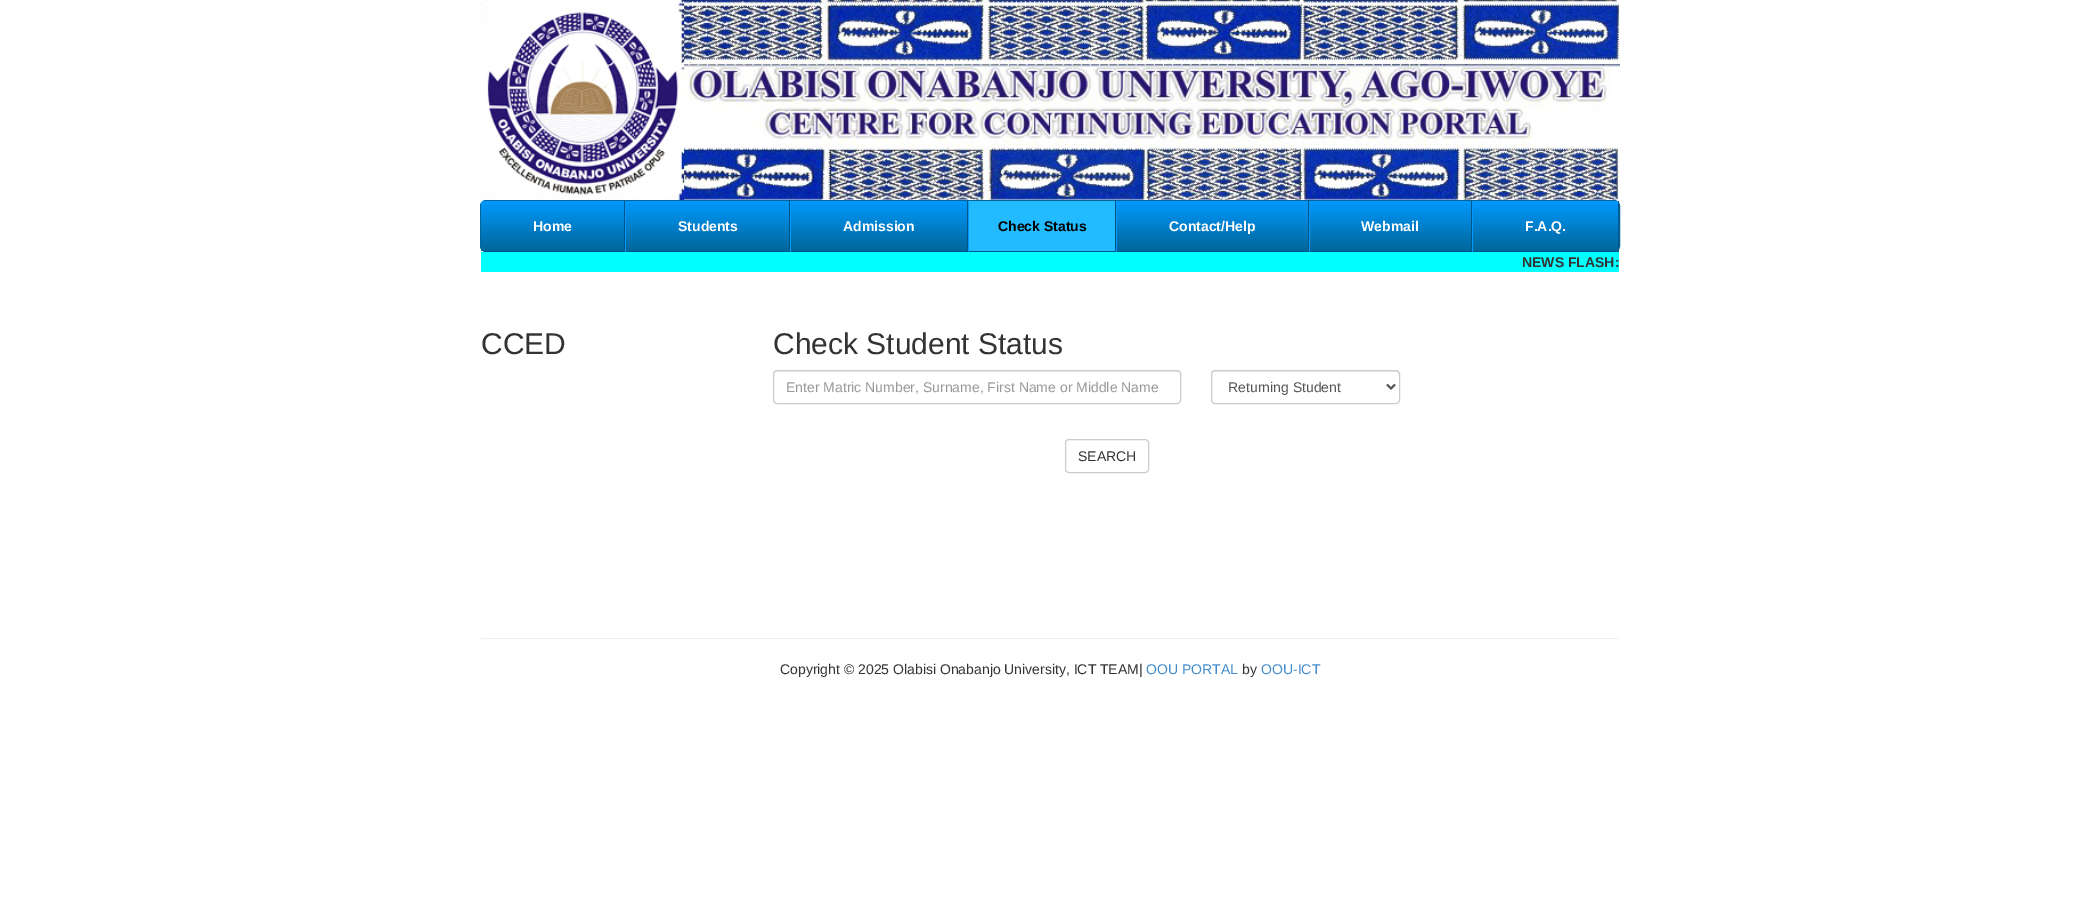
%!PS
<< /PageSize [2100 911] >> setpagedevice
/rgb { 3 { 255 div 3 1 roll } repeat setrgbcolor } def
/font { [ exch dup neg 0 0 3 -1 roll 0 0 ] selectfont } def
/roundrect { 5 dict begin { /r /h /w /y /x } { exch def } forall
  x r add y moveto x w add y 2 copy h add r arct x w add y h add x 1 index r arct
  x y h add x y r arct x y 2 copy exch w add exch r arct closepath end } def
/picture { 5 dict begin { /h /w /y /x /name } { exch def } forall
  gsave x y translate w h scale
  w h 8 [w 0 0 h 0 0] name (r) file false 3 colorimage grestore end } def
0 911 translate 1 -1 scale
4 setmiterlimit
255 255 255 rgb
0 0 2100 911 rectfill
(img/1.rgb) 480 0 1140 200 picture
0 102 153 rgb
480.5 200.5 1139 51 5.5 roundrect stroke
486 201 moveto 625 201 lineto 625 252 lineto 486 252 lineto 483 252 481 250 481 247 curveto 481 206 lineto 481 203 483 201 486 201 curveto closepath fill
gsave
486 201 moveto 625 201 lineto 625 252 lineto 486 252 lineto 483 252 481 250 481 247 curveto 481 206 lineto 481 203 483 201 486 201 curveto closepath clip newpath
gsave 486 201 moveto 625 201 lineto 625 251 lineto 481 251 lineto 481 206 lineto 481 203 483 201 486 201 curveto closepath clip newpath
<< /ShadingType 2 /ColorSpace /DeviceRGB /Coords [553 201 553 251] /Extend [true true] /Function << /FunctionType 2 /Domain [0 1] /C0 [0 0.6 1] /C1 [0 0.4 0.6] /N 1 >> >> shfill grestore
grestore
0 85 136 rgb
624 201 1 51 rectfill
484 251 141 1 rectfill
gsave 626 201 moveto 789 201 lineto 789 251 lineto 626 251 lineto closepath clip newpath
<< /ShadingType 2 /ColorSpace /DeviceRGB /Coords [708 201 708 251] /Extend [true true] /Function << /FunctionType 2 /Domain [0 1] /C0 [0 0.6 1] /C1 [0 0.4 0.6] /N 1 >> >> shfill grestore
[
  [789 201 1 51 0 85 136]
  [625 251 165 1 0 85 136]
  [625 201 1 51 0 153 255]
] { aload pop rgb rectfill } forall
gsave 791 201 moveto 967 201 lineto 967 251 lineto 791 251 lineto closepath clip newpath
<< /ShadingType 2 /ColorSpace /DeviceRGB /Coords [879 201 879 251] /Extend [true true] /Function << /FunctionType 2 /Domain [0 1] /C0 [0 0.6 1] /C1 [0 0.4 0.6] /N 1 >> >> shfill grestore
[
  [967 201 1 51 0 85 136]
  [790 251 178 1 0 85 136]
  [790 201 1 51 0 153 255]
  [969 201 146 50 34 187 255]
  [1115 201 1 51 0 85 136]
  [968 251 148 1 0 85 136]
  [968 201 1 51 0 153 255]
] { aload pop rgb rectfill } forall
gsave 1117 201 moveto 1308 201 lineto 1308 251 lineto 1117 251 lineto closepath clip newpath
<< /ShadingType 2 /ColorSpace /DeviceRGB /Coords [1213 201 1213 251] /Extend [true true] /Function << /FunctionType 2 /Domain [0 1] /C0 [0 0.6 1] /C1 [0 0.4 0.6] /N 1 >> >> shfill grestore
[
  [1308 201 1 51 0 85 136]
  [1116 251 193 1 0 85 136]
  [1116 201 1 51 0 153 255]
] { aload pop rgb rectfill } forall
gsave 1310 201 moveto 1471 201 lineto 1471 251 lineto 1310 251 lineto closepath clip newpath
<< /ShadingType 2 /ColorSpace /DeviceRGB /Coords [1391 201 1391 251] /Extend [true true] /Function << /FunctionType 2 /Domain [0 1] /C0 [0 0.6 1] /C1 [0 0.4 0.6] /N 1 >> >> shfill grestore
[
  [1471 201 1 51 0 85 136]
  [1309 251 163 1 0 85 136]
  [1309 201 1 51 0 153 255]
] { aload pop rgb rectfill } forall
gsave 1473 201 moveto 1618 201 lineto 1618 251 lineto 1473 251 lineto closepath clip newpath
<< /ShadingType 2 /ColorSpace /DeviceRGB /Coords [1546 201 1546 251] /Extend [true true] /Function << /FunctionType 2 /Domain [0 1] /C0 [0 0.6 1] /C1 [0 0.4 0.6] /N 1 >> >> shfill grestore
[
  [1618 201 1 51 0 85 136]
  [1472 251 147 1 0 85 136]
  [1472 201 1 51 0 153 255]
  [481 252 1138 20 0 255 255]
] { aload pop rgb rectfill } forall
236 236 236 rgb
777 372 moveto 1177 372 lineto 1179 372 1180 373 1180 375 curveto 1180 373 1179 371 1177 371 curveto 777 371 lineto 775 371 774 373 774 375 curveto 774 373 775 372 777 372 curveto closepath fill
204 204 204 rgb
773.5 370.5 407 33 3.5 roundrect stroke
236 236 236 rgb
1215 372 moveto 1396 372 lineto 1398 372 1399 373 1399 375 curveto 1399 373 1398 371 1396 371 curveto 1214 371 lineto 1212 372 1212 373 1212 375 curveto 1212 373 1213 372 1215 372 curveto closepath fill
204 204 204 rgb
1211.5 370.5 188 33 3.5 roundrect stroke
85 85 85 rgb
2 setlinewidth
1387 384.5 moveto 1391 388.5 lineto 1395 384.5 lineto stroke
204 204 204 rgb
1 setlinewidth
1065.5 439.5 83 33 3.5 roundrect stroke
238 238 238 rgb
481 638 1138 1 rectfill
/LiberationSans-Bold 14 font
255 255 255 rgb
[
  [(Home) 533 231]
  [(Students) 678 231]
  [(Admission) 843 231]
] { aload pop moveto show } forall
0 0 0 rgb
998 231 moveto (Check Status) show
255 255 255 rgb
[
  [(Contact/Help) 1169 231]
  [(Webmail) 1361 231]
  [(F.A.Q.) 1525 231]
] { aload pop moveto show } forall
51 51 51 rgb
1522 267 moveto (NEWS FLASH:) show
/LiberationSans-Regular 30 font
481 354 moveto (CCED) show
773 354 moveto (Check Student Status) show
/LiberationSans-Regular 14 font
153 153 153 rgb
786 392 moveto (Enter Matric Number, Surname, First Name or Middle Name) show
85 85 85 rgb
1228 392 moveto (Returning Student) show
51 51 51 rgb
1078 461 moveto (SEARCH) show
780 674 moveto (Copyright © 2025 Olabisi Onabanjo University, ICT TEAM|) show
66 139 202 rgb
1146 674 moveto (OOU PORTAL) show
51 51 51 rgb
1242 674 moveto (by) show
66 139 202 rgb
1261 674 moveto (OOU-ICT) show
showpage
